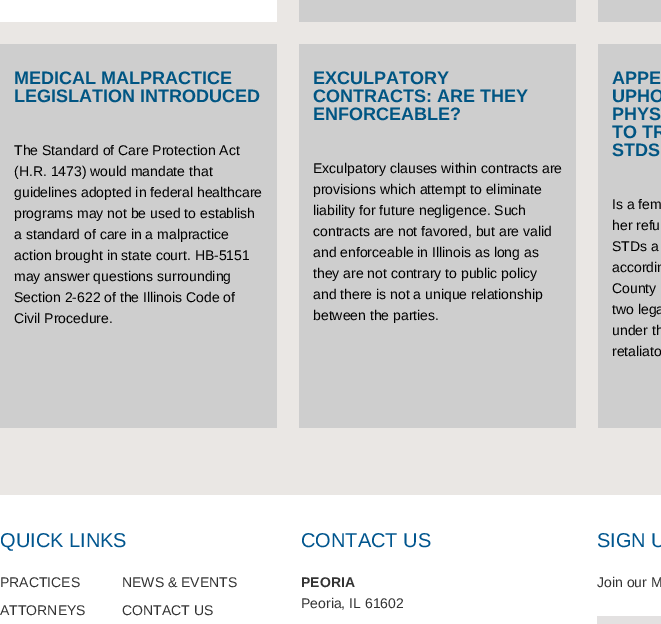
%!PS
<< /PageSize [661 624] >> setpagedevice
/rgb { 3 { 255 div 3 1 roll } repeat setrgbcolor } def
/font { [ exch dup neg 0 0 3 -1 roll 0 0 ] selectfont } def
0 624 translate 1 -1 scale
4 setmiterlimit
255 255 255 rgb
0 0 661 624 rectfill
[
  [0 0 661 495 234 231 228]
  [0 0 277 22 255 255 255]
  [299 0 277 22 206 206 206]
  [598 0 63 22 206 206 206]
  [0 44 277 384 206 206 206]
  [299 44 277 384 206 206 206]
  [598 44 63 384 206 206 206]
  [597 616 64 8 227 225 225]
] { aload pop rgb rectfill } forall
/LiberationSans-Bold 18 font
0 85 131 rgb
14 84 moveto (MEDICAL MALPRACTICE) show
14 102 moveto (LEGISLATION INTRODUCED) show
/LiberationSans-Regular 14 font
0 0 0 rgb
[
  [(The Standard of Care Protection Act) 14 155]
  [(\(H.R. 1473\) would mandate that) 14 176]
  [(guidelines adopted in federal healthcare) 14 197]
  [(programs may not be used to establish) 14 218]
  [(a standard of care in a malpractice) 14 239]
  [(action brought in state court. HB-5151) 14 260]
  [(may answer questions surrounding) 14 281]
  [(Section 2-622 of the Illinois Code of) 14 302]
  [(Civil Procedure.) 14 323]
] { aload pop moveto show } forall
/LiberationSans-Bold 18 font
0 85 131 rgb
[
  [(EXCULPATORY) 313 84]
  [(CONTRACTS: ARE THEY) 313 102]
  [(ENFORCEABLE?) 313 120]
] { aload pop moveto show } forall
/LiberationSans-Regular 14 font
0 0 0 rgb
[
  [(Exculpatory clauses within contracts are) 313 173]
  [(provisions which attempt to eliminate) 313 194]
  [(liability for future negligence. Such) 313 215]
  [(contracts are not favored, but are valid) 313 236]
  [(and enforceable in Illinois as long as) 313 257]
  [(they are not contrary to public policy) 313 278]
  [(and there is not a unique relationship) 313 299]
  [(between the parties.) 313 320]
] { aload pop moveto show } forall
/LiberationSans-Bold 18 font
0 85 131 rgb
[
  [(APPE) 612 84]
  [(UPHO) 612 102]
  [(PHYS) 612 120]
  [(TO TR) 612 138]
  [(STDS) 612 156]
] { aload pop moveto show } forall
/LiberationSans-Regular 14 font
0 0 0 rgb
[
  [(Is a fem) 612 209]
  [(her refu) 612 230]
  [(STDs a) 612 251]
  [(accordin) 612 272]
  [(County) 612 293]
  [(two lega) 612 314]
  [(under th) 612 335]
  [(retaliato) 612 356]
] { aload pop moveto show } forall
/LiberationSans-Regular 20 font
0 85 142 rgb
0 547 moveto (QUICK LINKS) show
/LiberationSans-Regular 14 font
51 51 51 rgb
[
  [(PRACTICES) 0 587]
  [(ATTORNEYS) 0 615]
  [(NEWS & EVENTS) 122 587]
  [(CONTACT US) 122 615]
] { aload pop moveto show } forall
/LiberationSans-Regular 20 font
0 85 142 rgb
301 547 moveto (CONTACT US) show
/LiberationSans-Bold 14 font
51 51 51 rgb
301 587 moveto (PEORIA) show
/LiberationSans-Regular 14 font
301 608 moveto (Peoria, IL 61602) show
/LiberationSans-Regular 20 font
0 85 142 rgb
597 547 moveto (SIGN U) show
/LiberationSans-Regular 14 font
51 51 51 rgb
597 587 moveto (Join our M) show
showpage
